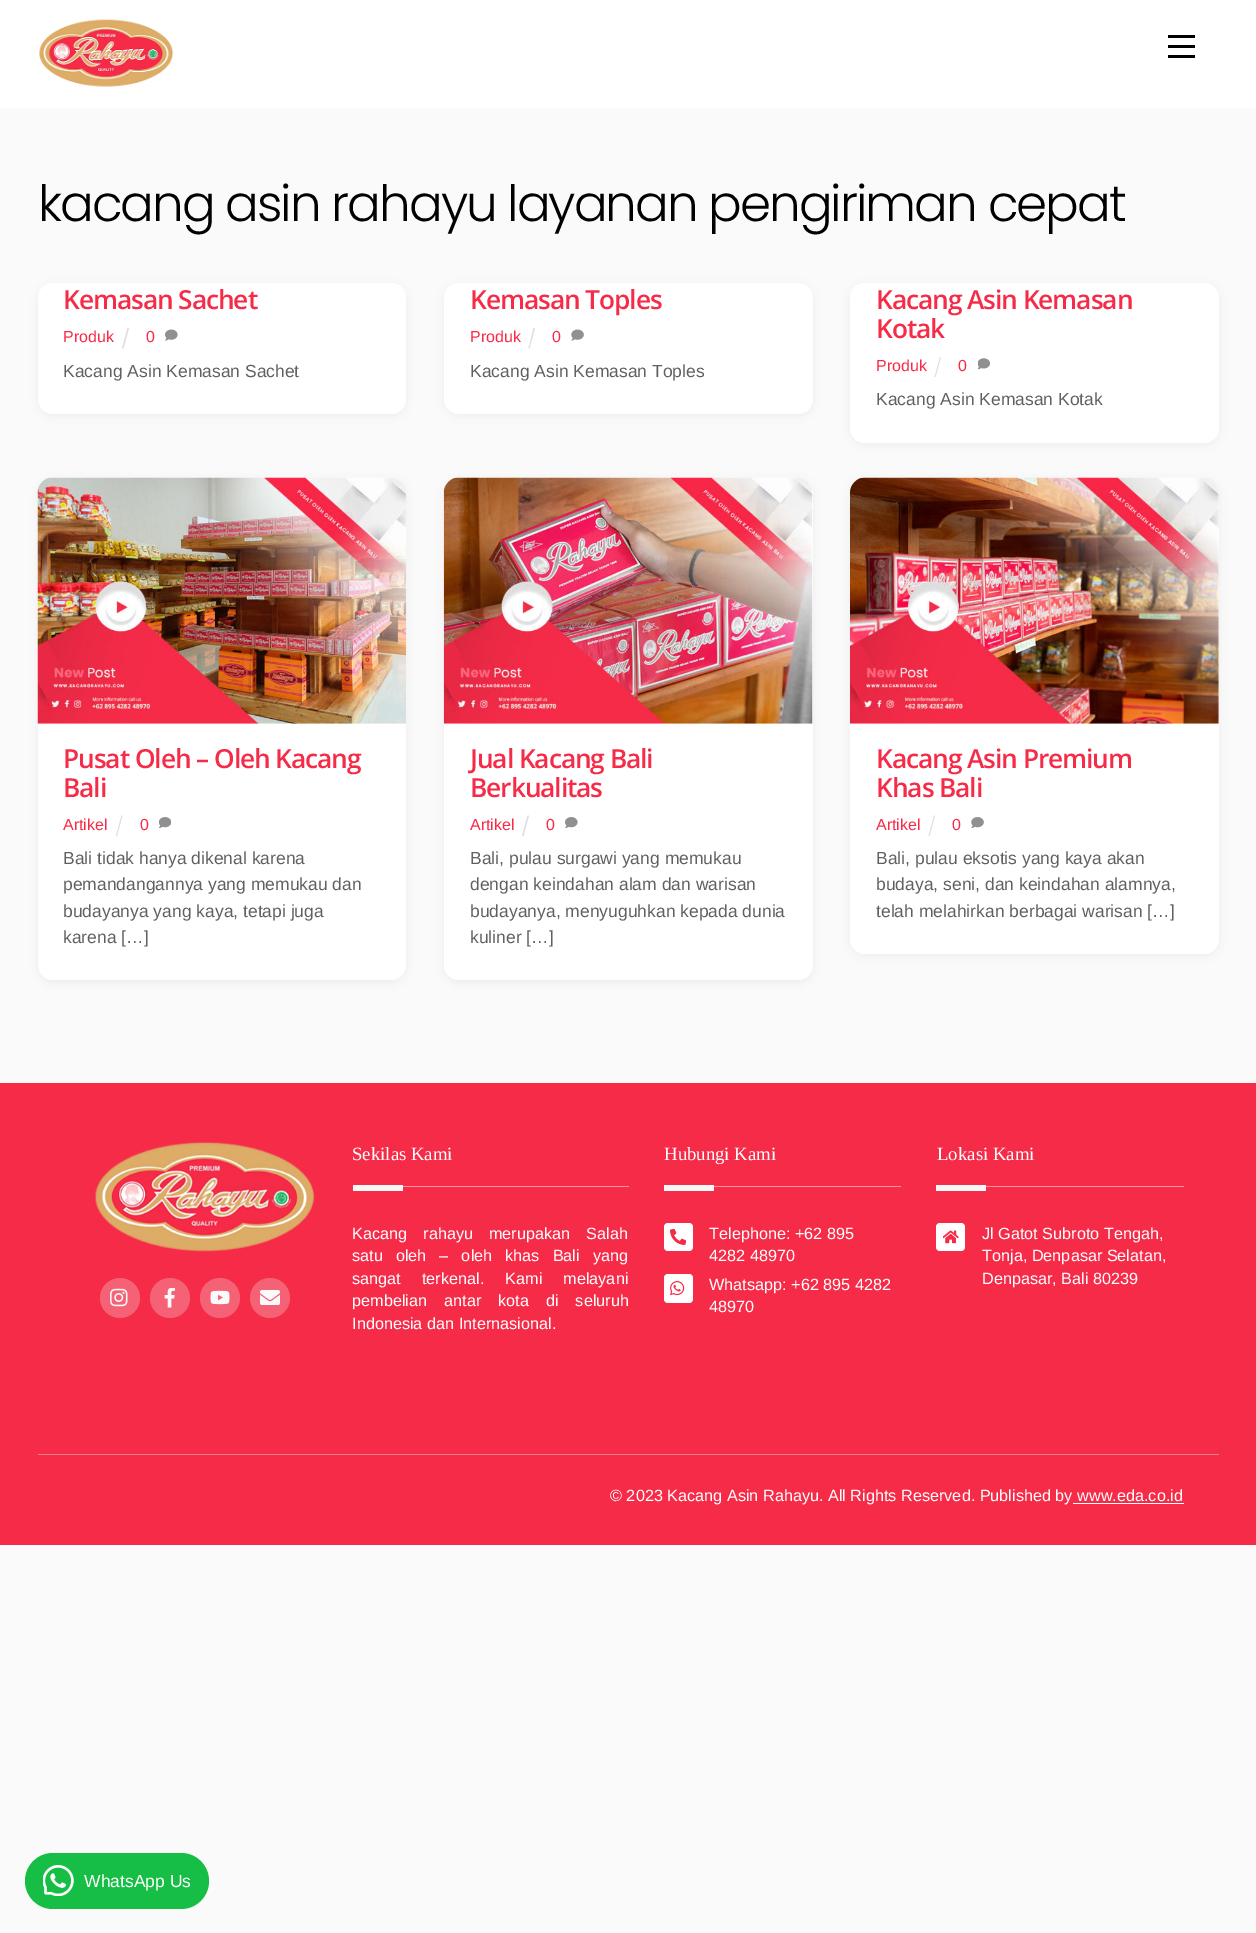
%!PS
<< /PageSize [1256 1933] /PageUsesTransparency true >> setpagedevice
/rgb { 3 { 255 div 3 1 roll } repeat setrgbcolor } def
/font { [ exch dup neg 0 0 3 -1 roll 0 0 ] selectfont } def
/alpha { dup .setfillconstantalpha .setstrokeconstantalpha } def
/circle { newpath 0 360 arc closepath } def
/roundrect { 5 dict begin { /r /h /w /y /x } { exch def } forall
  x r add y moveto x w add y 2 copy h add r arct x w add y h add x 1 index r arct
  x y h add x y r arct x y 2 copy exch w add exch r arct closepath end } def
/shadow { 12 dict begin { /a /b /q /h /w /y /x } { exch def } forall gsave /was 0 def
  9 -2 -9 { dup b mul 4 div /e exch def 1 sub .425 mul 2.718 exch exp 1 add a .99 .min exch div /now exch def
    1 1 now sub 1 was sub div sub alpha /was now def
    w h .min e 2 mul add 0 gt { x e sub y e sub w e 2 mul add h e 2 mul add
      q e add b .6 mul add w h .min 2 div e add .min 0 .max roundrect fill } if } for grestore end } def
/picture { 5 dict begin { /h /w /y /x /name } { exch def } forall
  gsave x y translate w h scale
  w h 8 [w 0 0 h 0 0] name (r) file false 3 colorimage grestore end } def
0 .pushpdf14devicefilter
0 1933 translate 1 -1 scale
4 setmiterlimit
250 250 250 rgb
0 0 1256 1933 rectfill
255 255 255 rgb
0 0 1256 108 rectfill
(img/1.rgb) 39 19 135 68 picture
[
  [1168 55 27 3 0 0 0]
  [1168 35 27 3 0 0 0]
  [1168 45 27 3 0 0 0]
] { aload pop rgb rectfill } forall
38 285 368 131 15 5 0.05 shadow
255 255 255 rgb
38 283 368 131 15 roundrect fill
223 223 223 rgb
127.5 328 moveto 129 328 lineto 123.5 348.5 lineto 122 348.5 lineto closepath fill
(img/2.rgb) 165 329 13 12 picture
0 0 0 rgb
444 285 369 131 15 5 0.05 shadow
255 255 255 rgb
444 283 369 131 15 roundrect fill
223 223 223 rgb
533.5 328 moveto 535 328 lineto 529.5 348.5 lineto 528.5 348.5 lineto closepath fill
(img/3.rgb) 571 329 13 12 picture
0 0 0 rgb
850 285 369 160 15 5 0.05 shadow
255 255 255 rgb
850 283 369 160 15 roundrect fill
223 223 223 rgb
940 357 moveto 941 357 lineto 935.5 377 lineto 934.5 377 lineto closepath fill
(img/4.rgb) 978 358 12 12 picture
0 0 0 rgb
38 480 368 503 15 5 0.05 shadow
255 255 255 rgb
38 478 368 502 15 roundrect fill
(img/5.rgb) 37 477 370 247 picture
223 223 223 rgb
121.5 815.5 moveto 122.5 815.5 lineto 117 836 lineto 116 836 lineto closepath fill
(img/6.rgb) 159 817 12 11 picture
0 0 0 rgb
444 480 369 503 15 5 0.05 shadow
255 255 255 rgb
444 478 369 502 15 roundrect fill
(img/7.rgb) 443 477 370 247 picture
223 223 223 rgb
527.5 815.5 moveto 529 815.5 lineto 523.5 836 lineto 522 836 lineto closepath fill
(img/8.rgb) 565 817 13 11 picture
0 0 0 rgb
850 480 369 476 15 5 0.05 shadow
255 255 255 rgb
850 478 369 476 15 roundrect fill
(img/9.rgb) 850 477 369 247 picture
223 223 223 rgb
934 815.5 moveto 935 815.5 lineto 929.5 836 lineto 928.5 836 lineto closepath fill
(img/10.rgb) 971 817 13 11 picture
246 43 72 rgb
0 1083 1256 462 rectfill
(img/11.rgb) 95 1142 220 110 picture
245 98 118 rgb
120 1298 20 circle fill
(img/12.rgb) 110 1288 18 19 picture
170 1298 20 circle fill
(img/13.rgb) 164 1288 11 20 picture
220 1298 20 circle fill
(img/14.rgb) 210 1290 20 15 picture
270 1298 20 circle fill
(img/15.rgb) 260 1290 20 15 picture
[
  [403 1186 226 1 251 149 164]
  [353 1185 50 6 247 247 247]
  [714 1186 187 1 251 149 164]
  [664 1185 50 6 247 247 247]
] { aload pop rgb rectfill } forall
255 255 255 rgb
664 1223 29 28 4 roundrect fill
(img/16.rgb) 670 1229 16 16 picture
664 1274 29 29 4 roundrect fill
(img/17.rgb) 670 1281 15 15 picture
251 149 164 rgb
986 1186 198 1 rectfill
247 247 247 rgb
936 1185 50 6 rectfill
255 255 255 rgb
936 1223 29 28 4 roundrect fill
(img/18.rgb) 943 1230 16 14 picture
233 126 141 rgb
38 1454 1181 1 rectfill
255 255 255 rgb
1073 1503 111 1 rectfill
22 190 69 rgb
25 1853 184 56 28 roundrect fill
(img/19.rgb) 43 1865 31 31 picture
/Poppins-Light 50 font
0 0 0 rgb
38 221 moveto -2 0 (kacang asin rahayu layanan pengiriman cepat) ashow
/OpenSans-SemiBold 26.25 font
246 43 72 rgb
63 309 moveto -1.05 0 (Kemasan Sachet) ashow
/LiberationSans-Regular 16 font
63 342 moveto (Produk) show
146 342 moveto (0) show
/LiberationSans-Regular 17.5 font
96 96 96 rgb
63 377 moveto (Kacang Asin Kemasan Sachet) show
/OpenSans-SemiBold 26.25 font
246 43 72 rgb
470 309 moveto -1.05 0 (Kemasan Toples) ashow
/LiberationSans-Regular 16 font
470 342 moveto (Produk) show
552 342 moveto (0) show
/LiberationSans-Regular 17.5 font
96 96 96 rgb
470 377 moveto (Kacang Asin Kemasan Toples) show
/OpenSans-SemiBold 26.25 font
246 43 72 rgb
876 309 moveto -1.05 0 (Kacang Asin Kemasan) ashow
876 338 moveto -1.05 0 (Kotak) ashow
/LiberationSans-Regular 16 font
876 371 moveto (Produk) show
958 371 moveto (0) show
/LiberationSans-Regular 17.5 font
96 96 96 rgb
876 405 moveto (Kacang Asin Kemasan Kotak) show
/OpenSans-SemiBold 26.25 font
246 43 72 rgb
63 768 moveto -1.05 0 (Pusat Oleh – Oleh Kacang) ashow
63 797 moveto -1.05 0 (Bali) ashow
/LiberationSans-Regular 16 font
63 830 moveto (Artikel) show
140 830 moveto (0) show
/LiberationSans-Regular 17.5 font
96 96 96 rgb
[
  [(Bali tidak hanya dikenal karena) 63 864]
  [(pemandangannya yang memukau dan) 63 890]
  [(budayanya yang kaya, tetapi juga) 63 917]
  [(karena […]) 63 943]
] { aload pop moveto show } forall
/OpenSans-SemiBold 26.25 font
246 43 72 rgb
470 768 moveto -1.05 0 (Jual Kacang Bali) ashow
470 797 moveto -1.05 0 (Berkualitas) ashow
/LiberationSans-Regular 16 font
470 830 moveto (Artikel) show
546 830 moveto (0) show
/LiberationSans-Regular 17.5 font
96 96 96 rgb
[
  [(Bali, pulau surgawi yang memukau) 470 864]
  [(dengan keindahan alam dan warisan) 470 890]
  [(budayanya, menyuguhkan kepada dunia) 470 917]
  [(kuliner […]) 470 943]
] { aload pop moveto show } forall
/OpenSans-SemiBold 26.25 font
246 43 72 rgb
876 768 moveto -1.05 0 (Kacang Asin Premium) ashow
876 797 moveto -1.05 0 (Khas Bali) ashow
/LiberationSans-Regular 16 font
876 830 moveto (Artikel) show
952 830 moveto (0) show
/LiberationSans-Regular 17.5 font
96 96 96 rgb
[
  [(Bali, pulau eksotis yang kaya akan) 876 864]
  [(budaya, seni, dan keindahan alamnya,) 876 890]
  [(telah melahirkan berbagai warisan […]) 876 917]
] { aload pop moveto show } forall
/LiberationSerif-Regular 18.75 font
255 255 255 rgb
352 1160 moveto (Sekilas Kami) show
/LiberationSans-Regular 16.25 font
352 1239 moveto 11.5 0 32 (Kacang rahayu merupakan Salah) widthshow
352 1261 moveto 8.5 0 32 (satu oleh – oleh khas Bali yang) widthshow
352 1284 moveto 16.5 0 32 (sangat terkenal. Kami melayani) widthshow
352 1306 moveto 12.5 0 32 (pembelian antar kota di seluruh) widthshow
352 1329 moveto (Indonesia dan Internasional.) show
/LiberationSerif-Regular 18.75 font
664 1160 moveto (Hubungi Kami) show
/LiberationSans-Regular 16.25 font
[
  [(Telephone: +62 895) 709 1239]
  [(4282 48970) 709 1261]
  [(Whatsapp: +62 895 4282) 709 1290]
  [(48970) 709 1312]
] { aload pop moveto show } forall
/LiberationSerif-Regular 18.75 font
937 1160 moveto (Lokasi Kami) show
/LiberationSans-Regular 16.25 font
[
  [(Jl Gatot Subroto Tengah,) 982 1239]
  [(Tonja, Denpasar Selatan,) 982 1261]
  [(Denpasar, Bali 80239) 982 1284]
  [(© 2023 Kacang Asin Rahayu. All Rights Reserved. Published by www.eda.co.id) 610 1501]
] { aload pop moveto show } forall
/LiberationSans-Regular 17.5 font
84 1887 moveto (WhatsApp Us) show
.poppdf14devicefilter showpage
